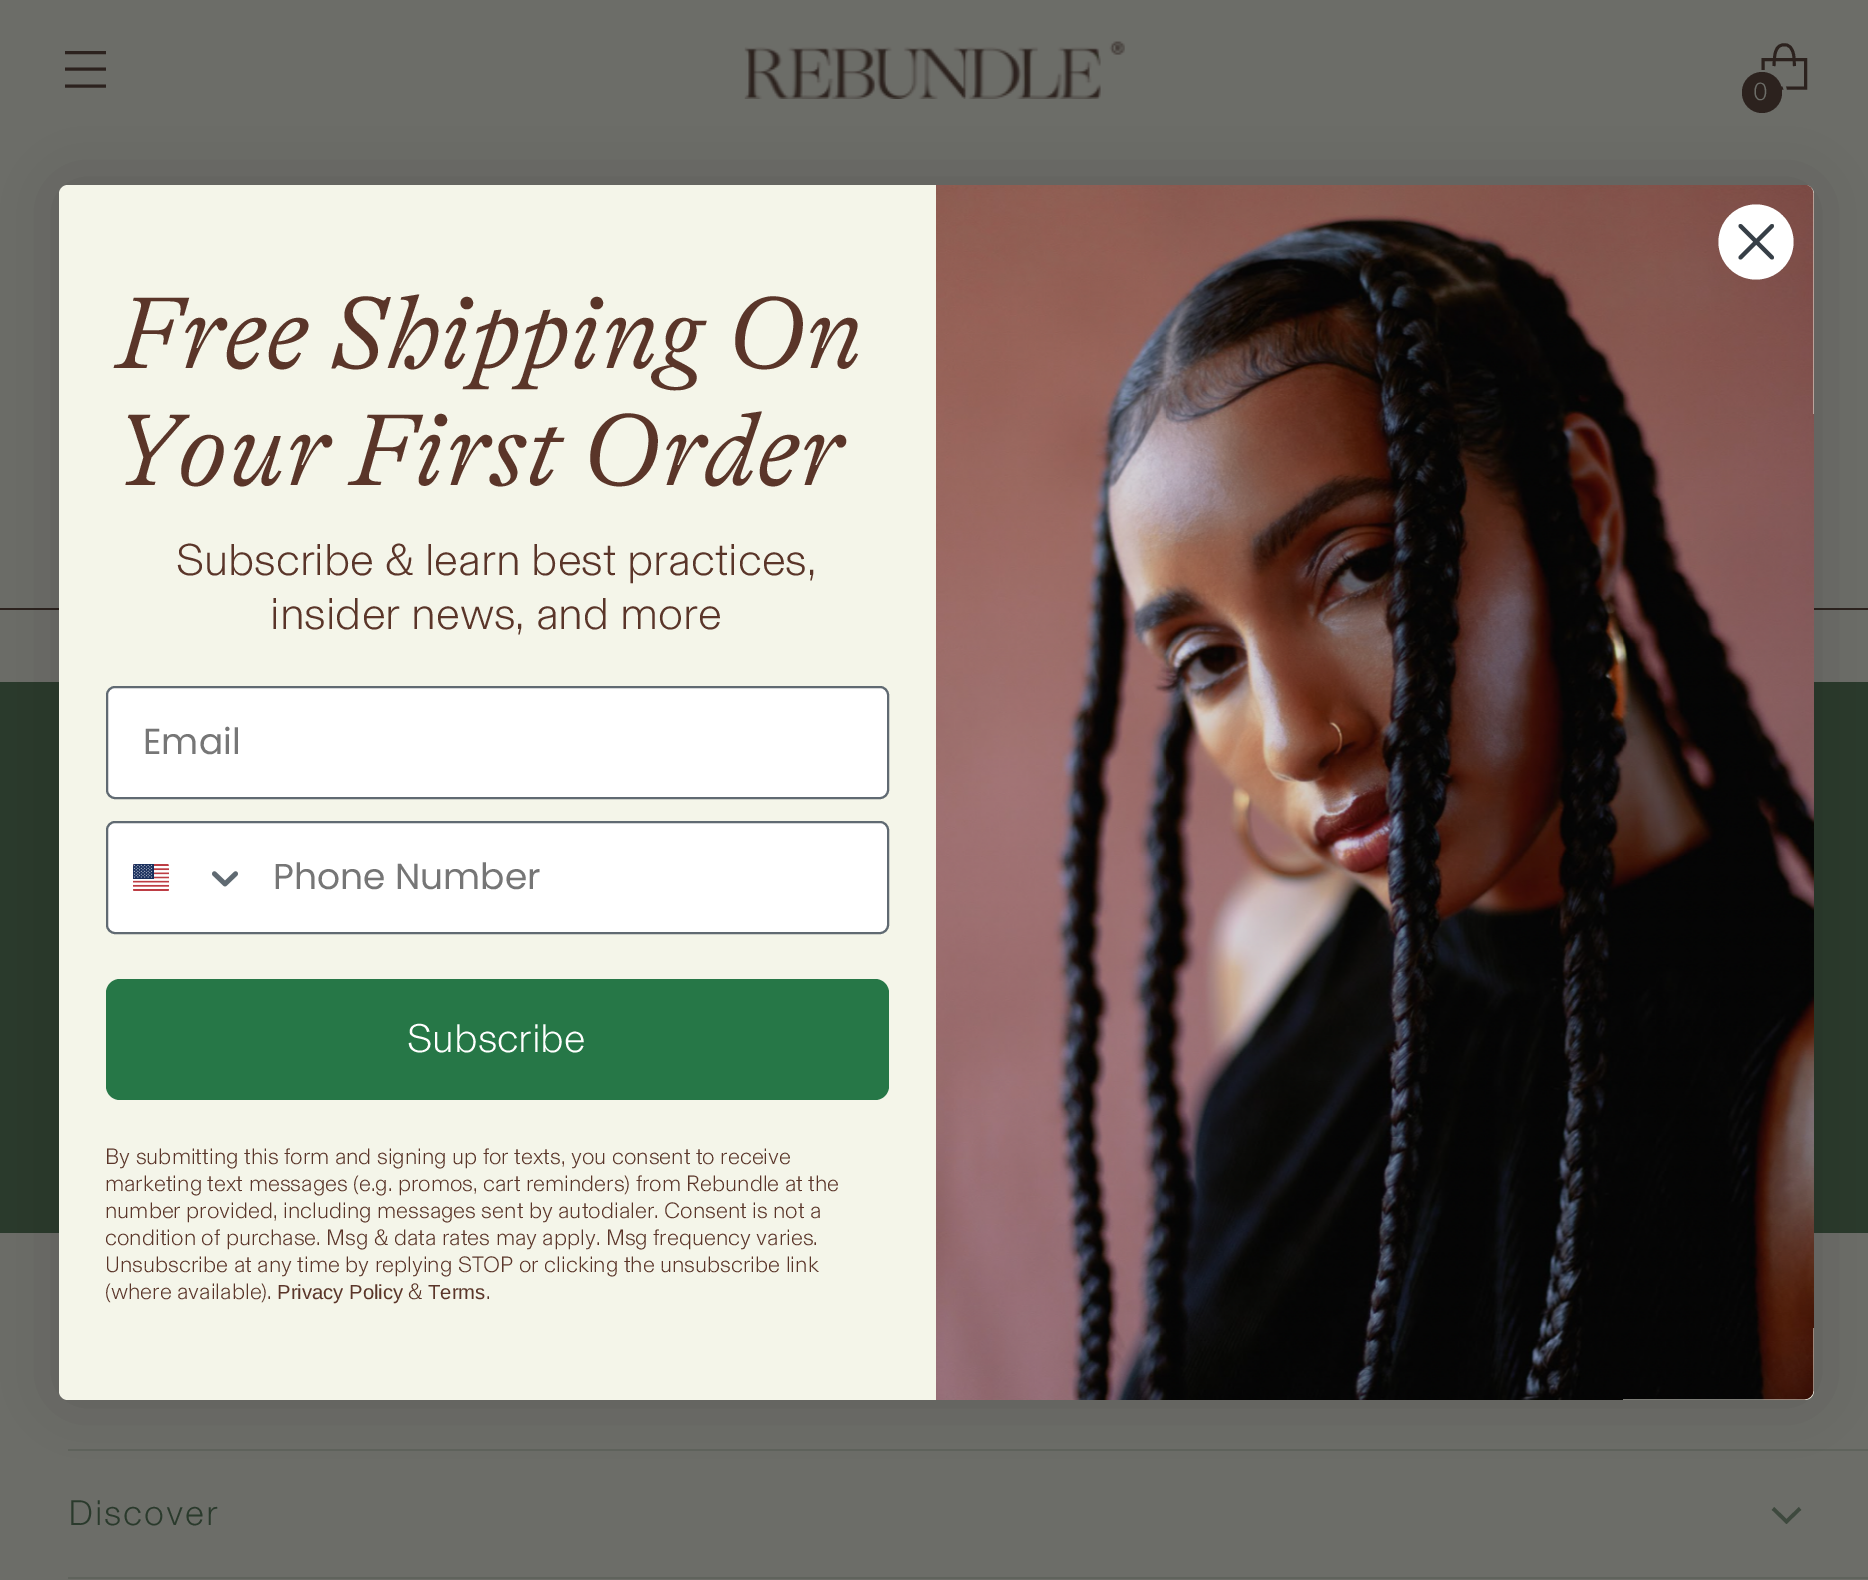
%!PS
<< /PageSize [1868 1580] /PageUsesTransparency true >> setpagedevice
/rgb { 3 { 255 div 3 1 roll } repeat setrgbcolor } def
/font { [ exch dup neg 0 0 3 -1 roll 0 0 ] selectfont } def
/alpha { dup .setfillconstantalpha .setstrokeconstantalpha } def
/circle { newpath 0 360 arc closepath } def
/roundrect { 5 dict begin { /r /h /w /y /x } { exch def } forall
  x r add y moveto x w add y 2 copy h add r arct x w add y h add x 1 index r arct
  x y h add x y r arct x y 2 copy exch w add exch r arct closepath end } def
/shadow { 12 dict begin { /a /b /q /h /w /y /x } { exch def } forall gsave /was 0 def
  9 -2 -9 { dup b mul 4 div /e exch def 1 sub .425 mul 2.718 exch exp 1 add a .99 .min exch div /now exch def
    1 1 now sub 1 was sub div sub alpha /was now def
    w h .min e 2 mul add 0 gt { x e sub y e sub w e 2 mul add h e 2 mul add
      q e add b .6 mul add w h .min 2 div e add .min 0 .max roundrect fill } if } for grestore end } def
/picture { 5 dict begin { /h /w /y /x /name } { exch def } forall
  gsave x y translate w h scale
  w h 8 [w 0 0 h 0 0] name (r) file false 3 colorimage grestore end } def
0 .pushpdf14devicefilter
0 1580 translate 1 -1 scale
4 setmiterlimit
108 109 104 rgb
0 0 1868 1580 rectfill
44 34 30 rgb
2.9 setlinewidth
65 69 moveto 106 69 lineto 65 52.5 moveto 106 52.5 lineto 65 86 moveto 106 86 lineto stroke
(img/1.rgb) 744 41 381 58 picture
2 setlinejoin
1794.5 66 moveto 1794 61 1794.5 55.5 1792.5 51 curveto 1791.5 48 1789.5 45.5 1786.5 45 curveto 1773.5 42.5 1774.5 58.5 1774 66 curveto stroke
0 setlinejoin
1805.5 88 moveto 1805.5 59.5 lineto 1763 59.5 lineto 1763 88 lineto closepath stroke
108 109 104 rgb
3 setlinewidth
1740.5 71.5 45 44 22 roundrect stroke
44 34 30 rgb
1742 72 40 41 20 roundrect fill
[
  [0 608 1868 2 44 34 30]
  [0 682 1868 551 42 58 44]
  [68 1449 1800 2 95 99 92]
  [68 1577 1800 2 95 99 92]
] { aload pop rgb rectfill } forall
62 73 62 rgb
3.6 setlinewidth
1773 1508.5 moveto 1786.5 1521.5 lineto 1800 1508.5 lineto stroke
0 0 0 rgb
59 185 1755 1215 9 34 0.15 shadow
244 245 233 rgb
59 185 1755 1215 9 roundrect fill
(img/4.rgb) 936 185 878 1215 picture
255 255 255 rgb
1756 242 37.5 circle fill
55 63 71 rgb
3.9 setlinewidth
1 setlinecap
1 setlinejoin
1740.5 226 moveto 1772 257.5 lineto 1740.5 257.5 moveto 1772 226 lineto closepath stroke
255 255 255 rgb
107 687 781 111 8 roundrect gsave fill grestore
96 106 114 rgb
2 setlinewidth
0 setlinecap
0 setlinejoin
stroke
255 255 255 rgb
107 822 781 111 8 roundrect gsave fill grestore
96 106 114 rgb
stroke
(img/2.rgb) 133 864 36 27 picture
(img/3.rgb) 212 871 26 16 picture
38 119 71 rgb
106 979 783 121 14 roundrect fill
/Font-Regular 25 font
108 109 104 rgb
1753 100 moveto (0) show
/Font-Regular 36 font
42 58 44 rgb
68 1525 moveto 1.75 0 (Discover) ashow
/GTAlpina-LightItalic 103.5 font
90 53 41 rgb
116 368 moveto (Free Shipping On) show
114 485 moveto (Your First Order) show
/Font-Regular 45 font
176 575 moveto (Subscribe & learn best practices,) show
270 629 moveto (insider news, and more) show
/Poppins-Regular 36 font
118 118 118 rgb
143 754 moveto (Email) show
273 889 moveto (Phone Number) show
/Font-Regular 40.5 font
255 255 255 rgb
407 1052 moveto (Subscribe) show
/Font-Regular 22.5 font
90 53 41 rgb
[
  [(By submitting this form and signing up for texts, you consent to receive) 105 1164]
  [(marketing text messages \(e.g. promos, cart reminders\) from Rebundle at the) 105 1191]
  [(number provided, including messages sent by autodialer. Consent is not a) 105 1218]
  [(condition of purchase. Msg & data rates may apply. Msg frequency varies.) 105 1245]
  [(Unsubscribe at any time by replying STOP or clicking the unsubscribe link) 105 1272]
  [(\(where available\).) 105 1299]
] { aload pop moveto show } forall
/LiberationSans-Regular 20.25 font
277 1299 moveto (Privacy Policy) show
/Font-Regular 22.5 font
408 1299 moveto (&) show
/LiberationSans-Regular 20.25 font
428 1299 moveto (Terms) show
/Font-Regular 22.5 font
486 1299 moveto (.) show
.poppdf14devicefilter showpage
